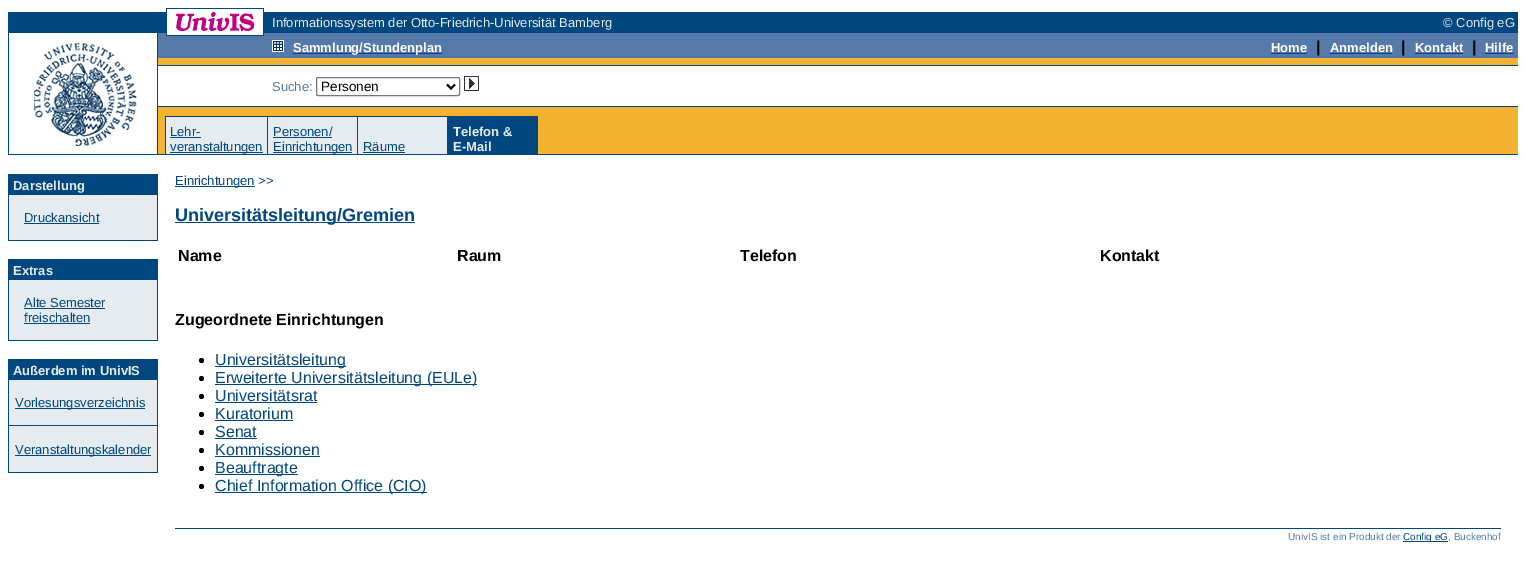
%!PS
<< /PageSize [1526 587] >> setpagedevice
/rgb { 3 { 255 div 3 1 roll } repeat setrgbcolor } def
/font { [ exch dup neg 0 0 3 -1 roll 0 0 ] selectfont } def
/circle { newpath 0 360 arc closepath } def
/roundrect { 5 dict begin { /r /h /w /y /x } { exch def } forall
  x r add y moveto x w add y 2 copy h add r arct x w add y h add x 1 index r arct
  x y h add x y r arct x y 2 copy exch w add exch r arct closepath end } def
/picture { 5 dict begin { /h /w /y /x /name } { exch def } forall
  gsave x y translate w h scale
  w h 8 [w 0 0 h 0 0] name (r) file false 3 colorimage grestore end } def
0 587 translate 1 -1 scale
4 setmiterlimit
255 255 255 rgb
0 0 1526 587 rectfill
[
  [166 8 98 1 0 70 127]
  [166 9 1 3 0 70 127]
  [263 9 1 23 0 70 127]
  [8 12 159 20 0 70 127]
] { aload pop rgb rectfill } forall
(img/1.rgb) 176 12 79 19 picture
[
  [264 12 1254 20 0 70 127]
  [8 32 1510 1 0 70 127]
  [167 32 96 1 255 255 255]
  [8 33 1 122 0 70 127]
] { aload pop rgb rectfill } forall
(img/2.rgb) 34 43 103 103 picture
[
  [157 33 1 121 0 70 127]
  [158 58 1360 96 243 178 49]
  [158 33 1360 2 85 122 169]
  [166 33 1 2 0 70 127]
  [167 33 96 2 255 255 255]
  [263 33 1 2 0 70 127]
  [158 35 1360 2 85 122 169]
  [166 35 98 1 0 70 127]
  [158 37 1360 21 85 122 169]
] { aload pop rgb rectfill } forall
(img/3.rgb) 272 40 12 12 picture
[
  [293 53 149 1 0 70 127]
  [1271 53 36 1 0 70 127]
  [1330 53 62 1 0 70 127]
  [1415 53 48 1 0 70 127]
  [1485 53 29 1 0 70 127]
  [158 65 1360 1 0 70 127]
  [158 66 1360 40 255 255 255]
] { aload pop rgb rectfill } forall
118 118 118 rgb
316.5 77.5 143 18 1.5 roundrect stroke
0 0 0 rgb
2 setlinewidth
447 84.5 moveto 451 88.5 lineto 455 84.5 lineto stroke
(img/4.rgb) 464 76 15 15 picture
[
  [158 106 1360 1 0 70 127]
  [165 116 373 1 0 70 127]
  [165 117 1 37 0 70 127]
  [166 117 101 37 229 235 239]
  [267 117 1 37 0 70 127]
  [268 117 89 37 229 235 239]
  [357 117 1 37 0 70 127]
  [358 117 89 37 229 235 239]
  [447 117 91 37 0 70 127]
  [170 137 31 1 0 70 127]
  [170 152 93 1 0 70 127]
  [273 137 59 1 0 70 127]
  [273 152 79 1 0 70 127]
  [363 152 42 1 0 70 127]
  [9 154 1509 1 0 70 127]
  [8 174 1 67 0 70 127]
  [9 174 148 21 0 70 127]
  [157 174 1 67 0 70 127]
  [9 195 148 45 229 235 239]
  [24 223 75 1 0 70 127]
  [9 240 148 1 0 70 127]
  [8 259 1 82 0 70 127]
  [9 259 148 21 0 70 127]
  [157 259 1 82 0 70 127]
  [9 280 148 60 229 235 239]
  [24 308 81 1 0 70 127]
  [24 323 66 1 0 70 127]
  [9 340 148 1 0 70 127]
  [8 359 1 114 0 70 127]
  [9 359 148 21 0 70 127]
  [157 359 1 114 0 70 127]
  [9 380 148 45 229 235 239]
  [15 408 130 1 0 70 127]
  [9 425 148 1 0 70 127]
  [9 426 148 1 229 235 239]
  [9 427 148 45 229 235 239]
  [15 455 136 1 0 70 127]
  [9 472 148 1 0 70 127]
  [175 186 80 1 0 70 127]
  [175 222 240 1 0 70 127]
] { aload pop rgb rectfill } forall
0 0 0 rgb
201.5 360.5 2.5 circle fill
0 70 127 rgb
215 366 131 1 rectfill
0 0 0 rgb
201.5 378.5 2.5 circle fill
0 70 127 rgb
215 384 262 1 rectfill
0 0 0 rgb
201.5 396.5 2.5 circle fill
0 70 127 rgb
215 402 102 1 rectfill
0 0 0 rgb
201.5 414.5 2.5 circle fill
0 70 127 rgb
215 420 78 1 rectfill
0 0 0 rgb
201.5 432.5 2.5 circle fill
0 70 127 rgb
215 438 42 1 rectfill
0 0 0 rgb
201.5 450.5 2.5 circle fill
0 70 127 rgb
215 456 105 1 rectfill
0 0 0 rgb
201.5 468.5 2.5 circle fill
0 70 127 rgb
215 474 83 1 rectfill
0 0 0 rgb
201.5 486.5 2.5 circle fill
[
  [215 492 212 1 0 70 127]
  [175 528 1326 1 0 70 127]
  [1403 541 45 1 0 70 127]
] { aload pop rgb rectfill } forall
/LiberationSans-Regular 13 font
229 235 239 rgb
272 27 moveto (Informationssystem der Otto-Friedrich-Universität Bamberg) show
1443 27 moveto (© Config eG) show
/LiberationSans-Bold 13 font
255 255 255 rgb
293 52 moveto (Sammlung/Stundenplan) show
1271 52 moveto (Home) show
/LiberationSans-Bold 16 font
0 0 0 rgb
1316 52 moveto (|) show
/LiberationSans-Bold 13 font
255 255 255 rgb
1330 52 moveto (Anmelden) show
/LiberationSans-Bold 16 font
0 0 0 rgb
1401 52 moveto (|) show
/LiberationSans-Bold 13 font
255 255 255 rgb
1415 52 moveto (Kontakt) show
/LiberationSans-Bold 16 font
0 0 0 rgb
1472 52 moveto (|) show
/LiberationSans-Bold 13 font
255 255 255 rgb
1485 52 moveto (Hilfe) show
/LiberationSans-Regular 13 font
85 122 169 rgb
272 91 moveto (Suche:) show
/LiberationSans-Regular 13.5 font
0 0 0 rgb
321 91 moveto (Personen) show
/LiberationSans-Regular 13 font
0 70 127 rgb
[
  [(Lehr-) 170 136]
  [(veranstaltungen) 170 151]
  [(Personen/) 273 136]
  [(Einrichtungen) 273 151]
  [(Räume) 363 151]
] { aload pop moveto show } forall
/LiberationSans-Bold 13 font
229 235 239 rgb
[
  [(Telefon &) 453 136]
  [(E-Mail) 453 151]
  [(Darstellung) 13 190]
] { aload pop moveto show } forall
/LiberationSans-Regular 13 font
0 70 127 rgb
24 222 moveto (Druckansicht) show
/LiberationSans-Bold 13 font
229 235 239 rgb
13 275 moveto (Extras) show
/LiberationSans-Regular 13 font
0 70 127 rgb
24 307 moveto (Alte Semester) show
24 322 moveto (freischalten) show
/LiberationSans-Bold 13 font
229 235 239 rgb
13 375 moveto (Außerdem im UnivIS) show
/LiberationSans-Regular 13 font
0 70 127 rgb
[
  [(Vorlesungsverzeichnis) 15 407]
  [(Veranstaltungskalender) 15 454]
  [(Einrichtungen >>) 175 185]
] { aload pop moveto show } forall
/LiberationSans-Bold 18 font
175 221 moveto (Universitätsleitung/Gremien) show
/LiberationSans-Bold 16 font
0 0 0 rgb
[
  [(Name) 178 261]
  [(Raum) 457 261]
  [(Telefon) 740 261]
  [(Kontakt) 1100 261]
  [(Zugeordnete Einrichtungen) 175 325]
] { aload pop moveto show } forall
/LiberationSans-Regular 16 font
0 70 127 rgb
[
  [(Universitätsleitung) 215 365]
  [(Erweiterte Universitätsleitung \(EULe\)) 215 383]
  [(Universitätsrat) 215 401]
  [(Kuratorium) 215 419]
  [(Senat) 215 437]
  [(Kommissionen) 215 455]
  [(Beauftragte) 215 473]
  [(Chief Information Office \(CIO\)) 215 491]
] { aload pop moveto show } forall
/LiberationSans-Regular 10 font
85 122 169 rgb
1288 540 moveto (UnivIS ist ein Produkt der) show
0 70 127 rgb
1403 540 moveto (Config eG) show
85 122 169 rgb
1448 540 moveto (, Buckenhof) show
showpage
